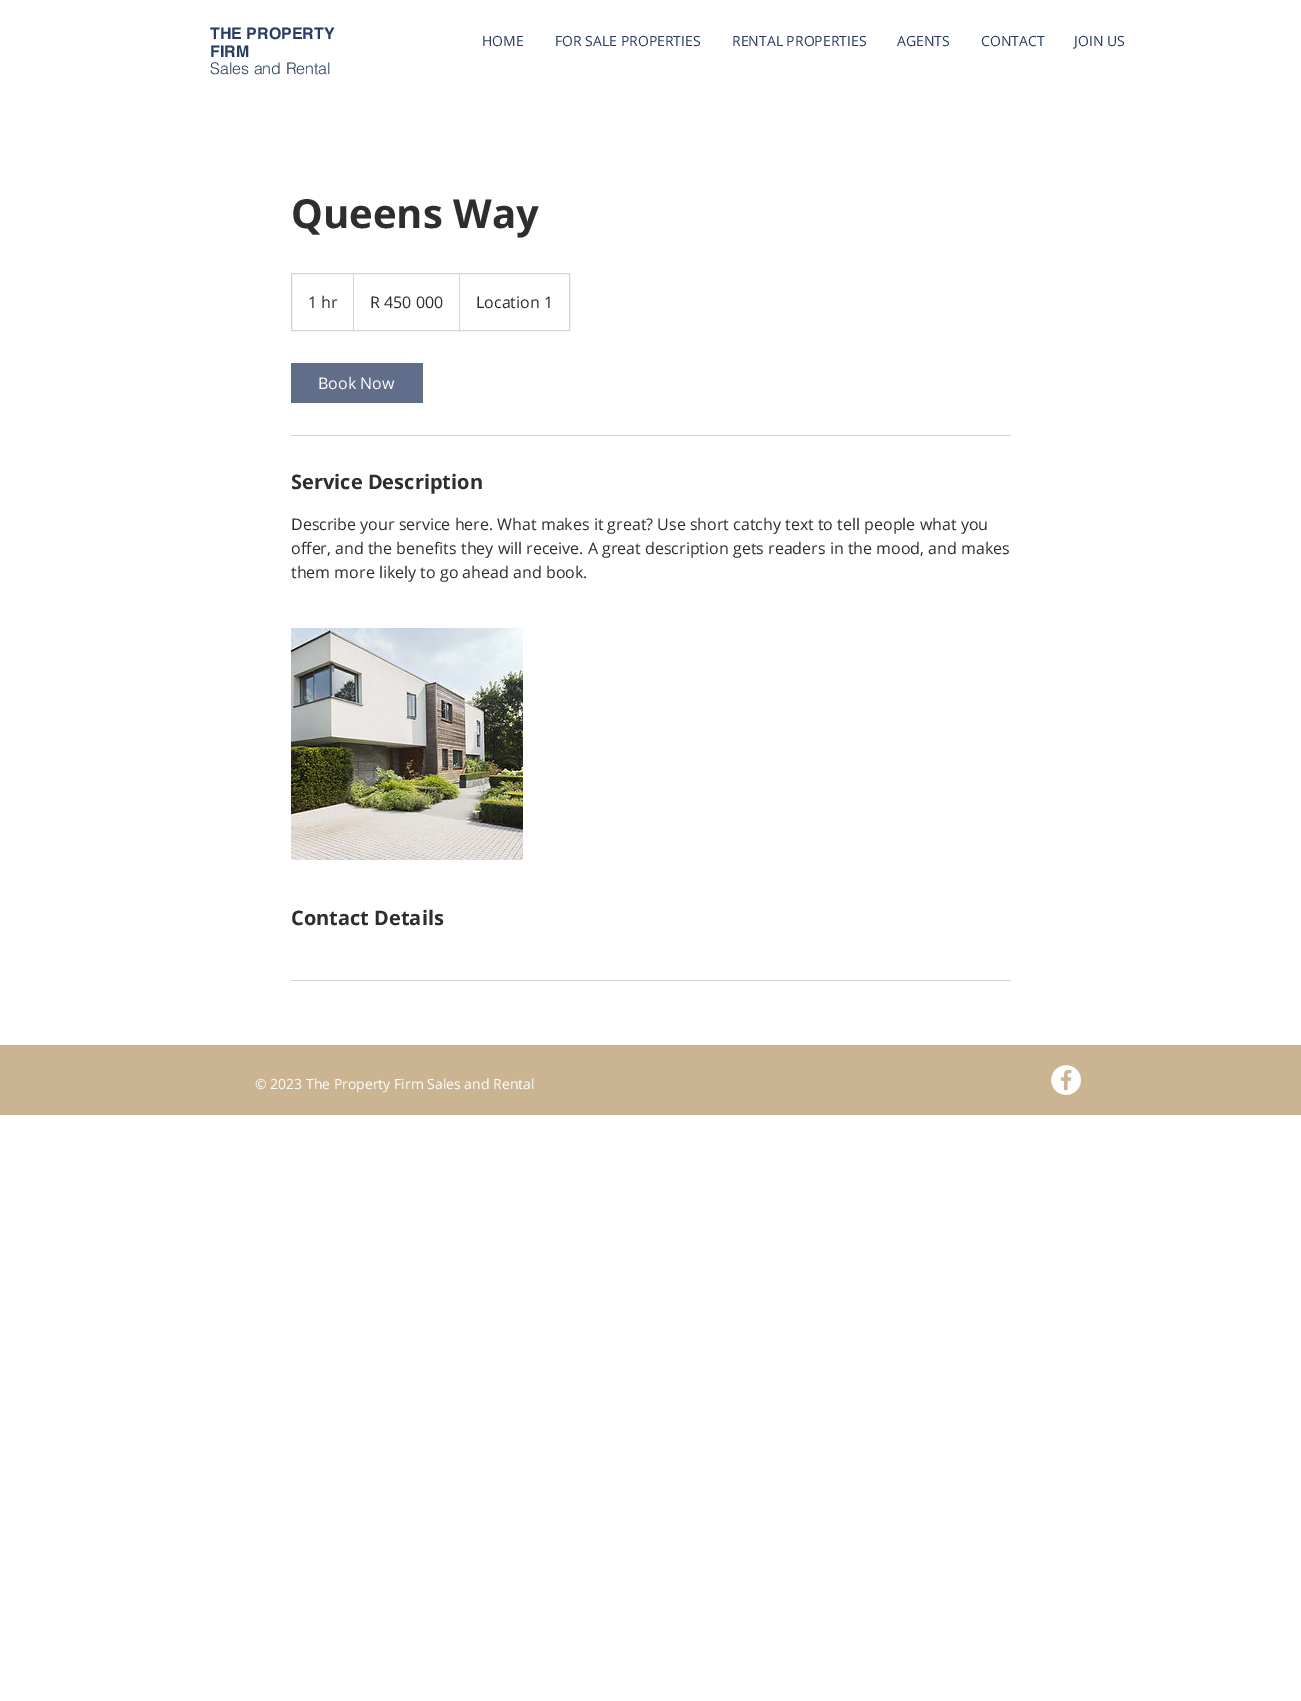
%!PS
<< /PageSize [1301 1701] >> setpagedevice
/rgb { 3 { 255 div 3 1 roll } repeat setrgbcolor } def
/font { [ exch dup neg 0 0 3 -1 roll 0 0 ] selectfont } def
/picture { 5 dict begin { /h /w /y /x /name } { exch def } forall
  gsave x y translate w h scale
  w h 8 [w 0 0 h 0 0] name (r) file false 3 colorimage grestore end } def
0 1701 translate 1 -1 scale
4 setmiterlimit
255 255 255 rgb
0 0 1301 1701 rectfill
213 213 213 rgb
291.5 273.5 278 57 rectstroke
353 330 moveto 353 273 lineto 354 274 lineto 354 330 lineto closepath fill
459 330 moveto 459 273 lineto 460 274 lineto 460 330 lineto closepath fill
97 110 137 rgb
291 363 132 40 rectfill
213 213 213 rgb
291 435 720 1 rectfill
(img/1.rgb) 291 628 232 232 picture
291 980 720 1 rectfill
203 180 146 rgb
0 1045 1301 70 rectfill
(img/2.rgb) 1051 1065 30 30 picture
/helvetica-Bold 16 font
40 59 98 rgb
210 39 moveto (THE PROPERTY) show
210 57 moveto (FIRM) show
/helvetica-Light 16 font
210 74 moveto (Sales and Rental) show
/OpenSans-Regular 14 font
[
  [(HOME) 482 46]
  [(FOR SALE PROPERTIES) 555 46]
  [(RENTAL PROPERTIES) 732 46]
  [(AGENTS) 897 46]
  [(CONTACT) 981 46]
  [(JOIN US) 1074 46]
] { aload pop moveto show } forall
/OpenSans-Bold 40 font
47 46 46 rgb
291 228 moveto (Queens Way) show
/OpenSans-Regular 16 font
[
  [(1 hr) 308 308]
  [(R 450 000) 370 308]
  [(Location 1) 476 308]
] { aload pop moveto show } forall
255 255 255 rgb
318 389 moveto (Book Now) show
/OpenSans-Bold 20 font
47 46 46 rgb
291 489 moveto (Service Description) show
/OpenSans-Regular 16 font
[
  [(Describe your service here. What makes it great? Use short catchy text to tell people what you) 291 530]
  [(offer, and the benefits they will receive. A great description gets readers in the mood, and makes) 291 554]
  [(them more likely to go ahead and book.) 291 578]
] { aload pop moveto show } forall
/OpenSans-Bold 20 font
291 925 moveto (Contact Details) show
/OpenSans-Regular 14 font
255 255 255 rgb
255 1089 moveto (© 2023 The Property Firm Sales and Rental) show
showpage
